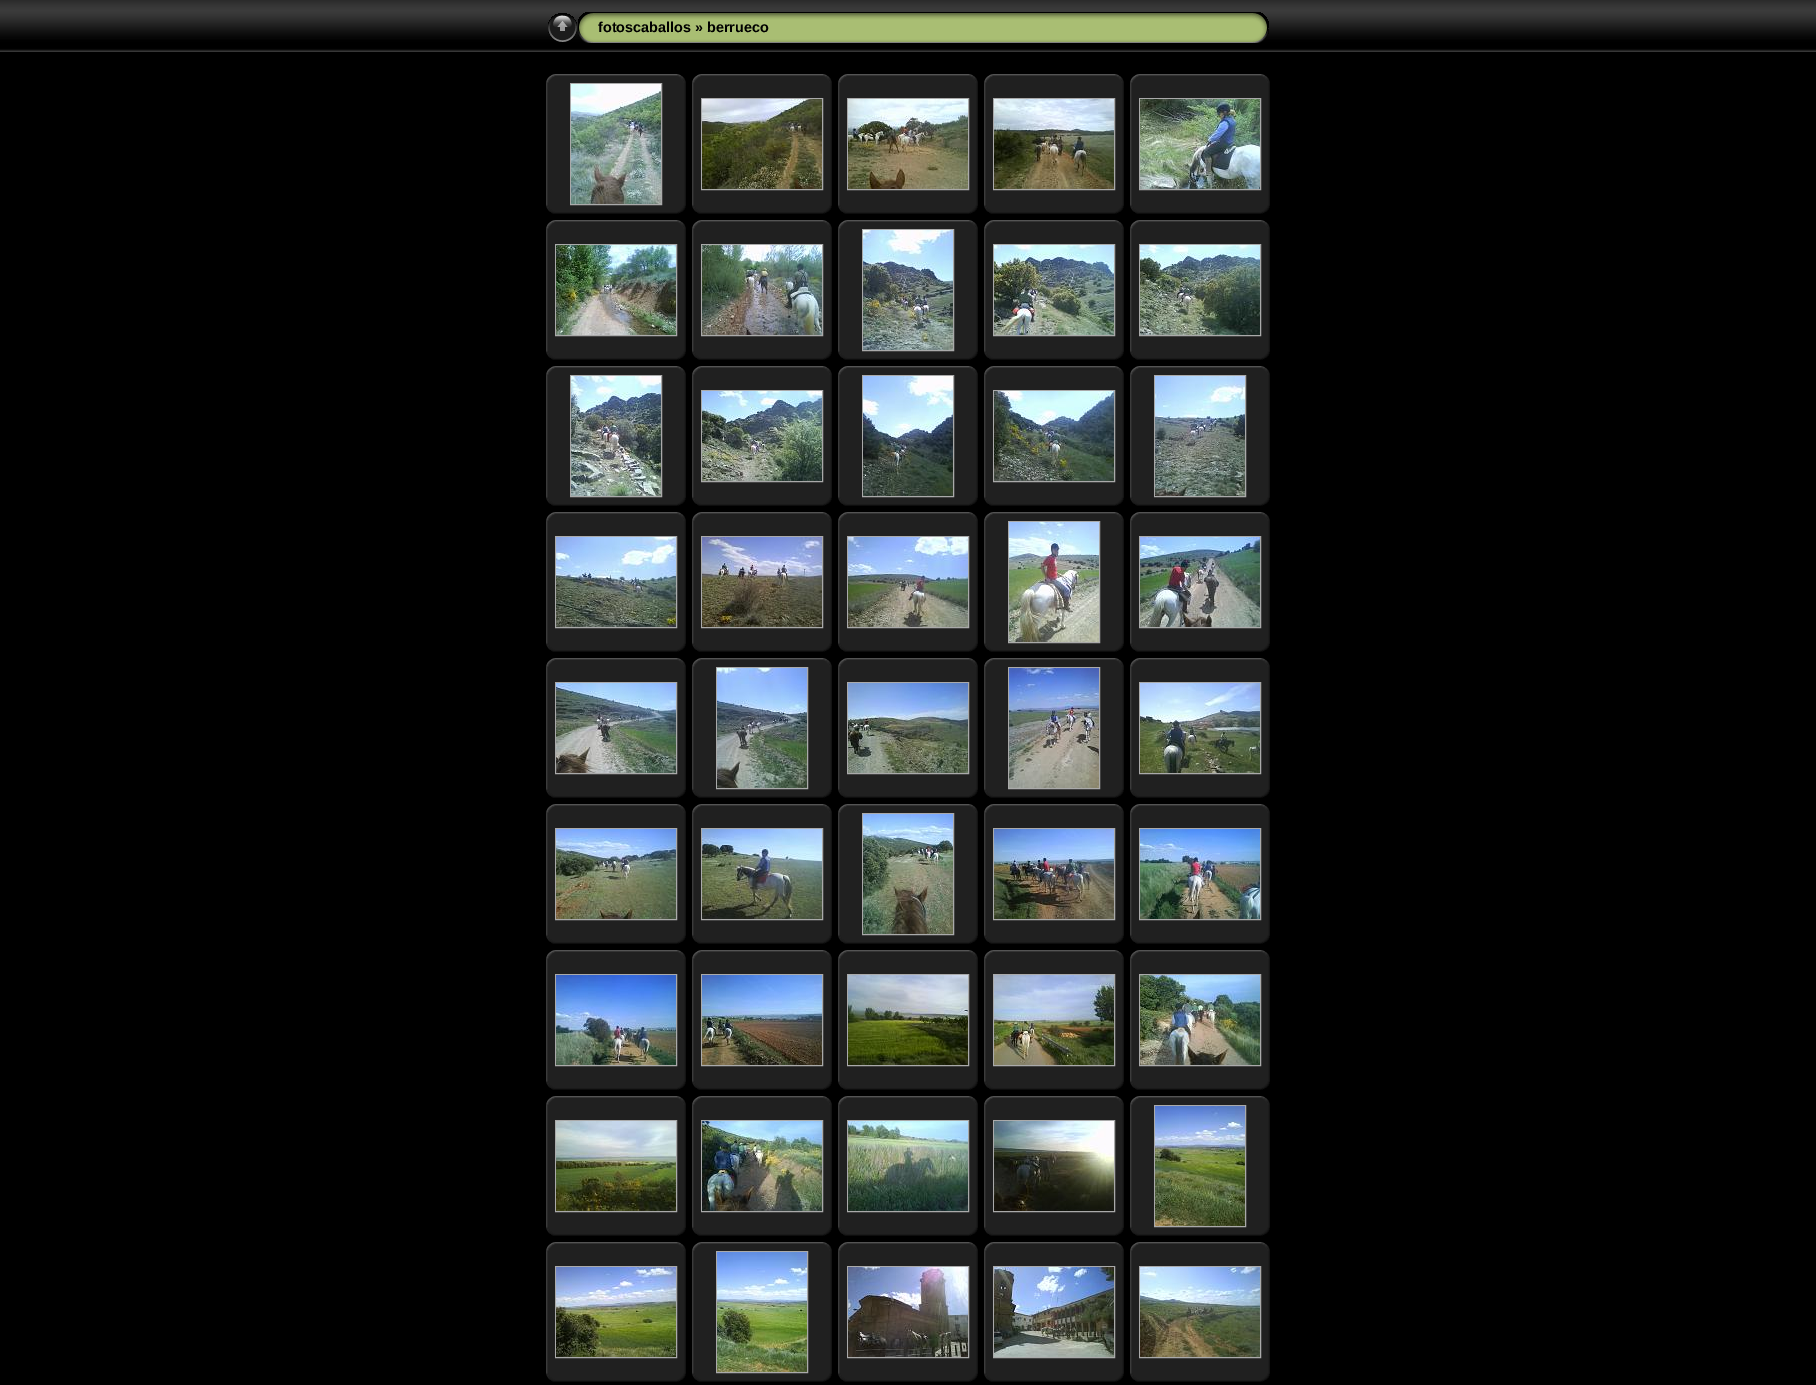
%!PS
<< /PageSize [1816 1385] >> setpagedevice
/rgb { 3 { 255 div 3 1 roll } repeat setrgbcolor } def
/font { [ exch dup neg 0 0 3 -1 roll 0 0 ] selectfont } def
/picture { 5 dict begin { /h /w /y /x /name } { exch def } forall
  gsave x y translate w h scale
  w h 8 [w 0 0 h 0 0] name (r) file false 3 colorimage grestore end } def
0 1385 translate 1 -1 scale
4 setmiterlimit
0 0 0 rgb
0 0 1816 1385 rectfill
(img/1.rgb) 0 0 1816 52 picture
(img/2.rgb) 548 13 29 29 picture
(img/3.rgb) 578 12 20 31 picture
(img/4.rgb) 598 12 651 31 picture
(img/5.rgb) 1249 12 20 31 picture
(img/6.rgb) 546 74 140 140 picture
170 170 170 rgb
570.5 83.5 91 121 rectstroke
(img/7.rgb) 571 84 90 120 picture
(img/6.rgb) 692 74 140 140 picture
701.5 98.5 121 91 rectstroke
(img/8.rgb) 702 99 120 90 picture
(img/6.rgb) 838 74 140 140 picture
847.5 98.5 121 91 rectstroke
(img/9.rgb) 848 99 120 90 picture
(img/6.rgb) 984 74 140 140 picture
993.5 98.5 121 91 rectstroke
(img/10.rgb) 994 99 120 90 picture
(img/6.rgb) 1130 74 140 140 picture
1139.5 98.5 121 91 rectstroke
(img/11.rgb) 1140 99 120 90 picture
(img/6.rgb) 546 220 140 140 picture
555.5 244.5 121 91 rectstroke
(img/12.rgb) 556 245 120 90 picture
(img/6.rgb) 692 220 140 140 picture
701.5 244.5 121 91 rectstroke
(img/13.rgb) 702 245 120 90 picture
(img/6.rgb) 838 220 140 140 picture
862.5 229.5 91 121 rectstroke
(img/14.rgb) 863 230 90 120 picture
(img/6.rgb) 984 220 140 140 picture
993.5 244.5 121 91 rectstroke
(img/15.rgb) 994 245 120 90 picture
(img/6.rgb) 1130 220 140 140 picture
1139.5 244.5 121 91 rectstroke
(img/16.rgb) 1140 245 120 90 picture
(img/6.rgb) 546 366 140 140 picture
570.5 375.5 91 121 rectstroke
(img/17.rgb) 571 376 90 120 picture
(img/6.rgb) 692 366 140 140 picture
701.5 390.5 121 91 rectstroke
(img/18.rgb) 702 391 120 90 picture
(img/6.rgb) 838 366 140 140 picture
862.5 375.5 91 121 rectstroke
(img/19.rgb) 863 376 90 120 picture
(img/6.rgb) 984 366 140 140 picture
993.5 390.5 121 91 rectstroke
(img/20.rgb) 994 391 120 90 picture
(img/6.rgb) 1130 366 140 140 picture
1154.5 375.5 91 121 rectstroke
(img/21.rgb) 1155 376 90 120 picture
(img/6.rgb) 546 512 140 140 picture
555.5 536.5 121 91 rectstroke
(img/22.rgb) 556 537 120 90 picture
(img/6.rgb) 692 512 140 140 picture
701.5 536.5 121 91 rectstroke
(img/23.rgb) 702 537 120 90 picture
(img/6.rgb) 838 512 140 140 picture
847.5 536.5 121 91 rectstroke
(img/24.rgb) 848 537 120 90 picture
(img/6.rgb) 984 512 140 140 picture
1008.5 521.5 91 121 rectstroke
(img/25.rgb) 1009 522 90 120 picture
(img/6.rgb) 1130 512 140 140 picture
1139.5 536.5 121 91 rectstroke
(img/26.rgb) 1140 537 120 90 picture
(img/6.rgb) 546 658 140 140 picture
555.5 682.5 121 91 rectstroke
(img/27.rgb) 556 683 120 90 picture
(img/6.rgb) 692 658 140 140 picture
716.5 667.5 91 121 rectstroke
(img/28.rgb) 717 668 90 120 picture
(img/6.rgb) 838 658 140 140 picture
847.5 682.5 121 91 rectstroke
(img/29.rgb) 848 683 120 90 picture
(img/6.rgb) 984 658 140 140 picture
1008.5 667.5 91 121 rectstroke
(img/30.rgb) 1009 668 90 120 picture
(img/6.rgb) 1130 658 140 140 picture
1139.5 682.5 121 91 rectstroke
(img/31.rgb) 1140 683 120 90 picture
(img/6.rgb) 546 804 140 140 picture
555.5 828.5 121 91 rectstroke
(img/32.rgb) 556 829 120 90 picture
(img/6.rgb) 692 804 140 140 picture
701.5 828.5 121 91 rectstroke
(img/33.rgb) 702 829 120 90 picture
(img/6.rgb) 838 804 140 140 picture
862.5 813.5 91 121 rectstroke
(img/34.rgb) 863 814 90 120 picture
(img/6.rgb) 984 804 140 140 picture
993.5 828.5 121 91 rectstroke
(img/35.rgb) 994 829 120 90 picture
(img/6.rgb) 1130 804 140 140 picture
1139.5 828.5 121 91 rectstroke
(img/36.rgb) 1140 829 120 90 picture
(img/6.rgb) 546 950 140 140 picture
555.5 974.5 121 91 rectstroke
(img/37.rgb) 556 975 120 90 picture
(img/6.rgb) 692 950 140 140 picture
701.5 974.5 121 91 rectstroke
(img/38.rgb) 702 975 120 90 picture
(img/6.rgb) 838 950 140 140 picture
847.5 974.5 121 91 rectstroke
(img/39.rgb) 848 975 120 90 picture
(img/6.rgb) 984 950 140 140 picture
993.5 974.5 121 91 rectstroke
(img/40.rgb) 994 975 120 90 picture
(img/6.rgb) 1130 950 140 140 picture
1139.5 974.5 121 91 rectstroke
(img/41.rgb) 1140 975 120 90 picture
(img/6.rgb) 546 1096 140 140 picture
555.5 1120.5 121 91 rectstroke
(img/42.rgb) 556 1121 120 90 picture
(img/6.rgb) 692 1096 140 140 picture
701.5 1120.5 121 91 rectstroke
(img/43.rgb) 702 1121 120 90 picture
(img/6.rgb) 838 1096 140 140 picture
847.5 1120.5 121 91 rectstroke
(img/44.rgb) 848 1121 120 90 picture
(img/6.rgb) 984 1096 140 140 picture
993.5 1120.5 121 91 rectstroke
(img/45.rgb) 994 1121 120 90 picture
(img/6.rgb) 1130 1096 140 140 picture
1154.5 1105.5 91 121 rectstroke
(img/46.rgb) 1155 1106 90 120 picture
(img/6.rgb) 546 1242 140 140 picture
555.5 1266.5 121 91 rectstroke
(img/47.rgb) 556 1267 120 90 picture
(img/6.rgb) 692 1242 140 140 picture
716.5 1251.5 91 121 rectstroke
(img/48.rgb) 717 1252 90 120 picture
(img/6.rgb) 838 1242 140 140 picture
847.5 1266.5 121 91 rectstroke
(img/49.rgb) 848 1267 120 90 picture
(img/6.rgb) 984 1242 140 140 picture
993.5 1266.5 121 91 rectstroke
(img/50.rgb) 994 1267 120 90 picture
(img/6.rgb) 1130 1242 140 140 picture
1139.5 1266.5 121 91 rectstroke
(img/51.rgb) 1140 1267 120 90 picture
/LiberationSans-Bold 14.4 font
0 0 0 rgb
598 32 moveto (fotoscaballos » berrueco) show
showpage
